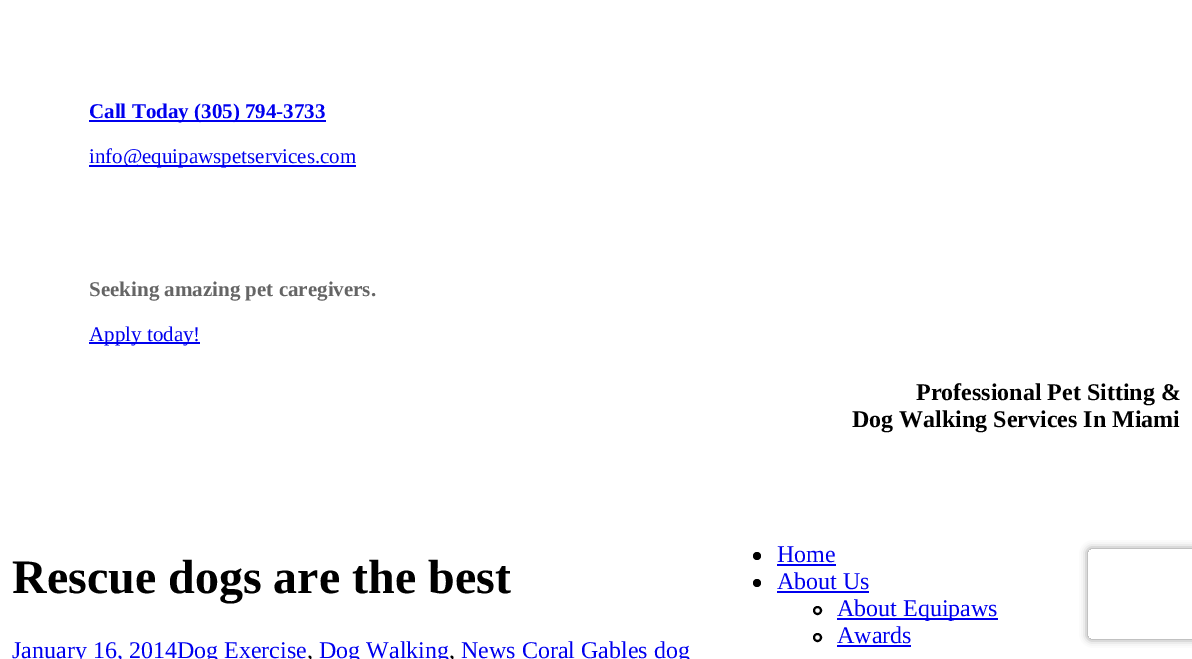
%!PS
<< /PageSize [1192 659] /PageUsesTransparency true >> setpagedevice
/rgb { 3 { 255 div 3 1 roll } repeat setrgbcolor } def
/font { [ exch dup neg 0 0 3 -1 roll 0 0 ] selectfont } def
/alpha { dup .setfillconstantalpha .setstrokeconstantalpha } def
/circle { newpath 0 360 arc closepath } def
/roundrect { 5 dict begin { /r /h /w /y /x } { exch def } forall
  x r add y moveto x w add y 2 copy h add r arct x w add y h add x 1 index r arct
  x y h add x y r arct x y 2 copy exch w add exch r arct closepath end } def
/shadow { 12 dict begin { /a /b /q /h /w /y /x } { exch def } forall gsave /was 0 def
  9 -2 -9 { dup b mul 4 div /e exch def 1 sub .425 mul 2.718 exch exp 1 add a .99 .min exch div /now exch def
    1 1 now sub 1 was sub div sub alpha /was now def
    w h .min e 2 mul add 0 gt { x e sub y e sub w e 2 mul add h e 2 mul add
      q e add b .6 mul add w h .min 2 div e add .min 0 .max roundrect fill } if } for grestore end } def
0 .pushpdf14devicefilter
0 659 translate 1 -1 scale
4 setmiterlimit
255 255 255 rgb
0 0 1192 659 rectfill
[
  [89 120 237 2 0 0 238]
  [89 165 267 2 0 0 238]
  [89 342 111 2 0 0 238]
] { aload pop rgb rectfill } forall
0 0 0 rgb
757 556 4 circle fill
0 0 238 rgb
777 564 59 2 rectfill
0 0 0 rgb
757 583 4 circle fill
0 0 238 rgb
777 591 92 2 rectfill
0 0 0 rgb
2 setlinewidth
817.5 610.5 3.5 circle stroke
0 0 238 rgb
837 618 161 2 rectfill
0 0 0 rgb
817.5 637.5 3.5 circle stroke
0 0 238 rgb
837 645 74 2 rectfill
gsave
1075 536 moveto 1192 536 lineto 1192 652 lineto 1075 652 lineto closepath 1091 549 moveto 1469 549 lineto 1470.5 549 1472 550.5 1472 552 curveto 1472 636 lineto 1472 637.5 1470.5 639 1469 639 curveto 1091 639 lineto 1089.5 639 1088 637.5 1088 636 curveto 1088 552 lineto 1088 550.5 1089.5 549 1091 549 curveto closepath eoclip newpath
128 128 128 rgb
1088 549 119 90 3 4 1 shadow
grestore
/LiberationSerif-Bold 21 font
89 118 moveto (Call Today \(305\) 794-3733) show
/LiberationSerif-Regular 21 font
89 163 moveto (info@equipawspetservices.com) show
/LiberationSerif-Bold 21 font
101 101 101 rgb
89 296 moveto (Seeking amazing pet caregivers.) show
/LiberationSerif-Regular 21 font
0 0 238 rgb
89 341 moveto (Apply today!) show
/LiberationSerif-Bold 24 font
0 0 0 rgb
916 400 moveto (Professional Pet Sitting &) show
852 427 moveto (Dog Walking Services In Miami) show
/LiberationSerif-Bold 48 font
12 593 moveto (Rescue dogs are the best) show
/LiberationSerif-Regular 24 font
0 0 238 rgb
[
  [(Home) 777 562]
  [(About Us) 777 589]
  [(About Equipaws) 837 616]
  [(Awards) 837 643]
  [(January 16, 2014Dog Exercise) 12 658]
] { aload pop moveto show } forall
0 0 0 rgb
307 658 moveto (,) show
0 0 238 rgb
319 658 moveto (Dog Walking) show
0 0 0 rgb
449 658 moveto (,) show
0 0 238 rgb
461 658 moveto (News Coral Gables dog) show
.poppdf14devicefilter showpage
